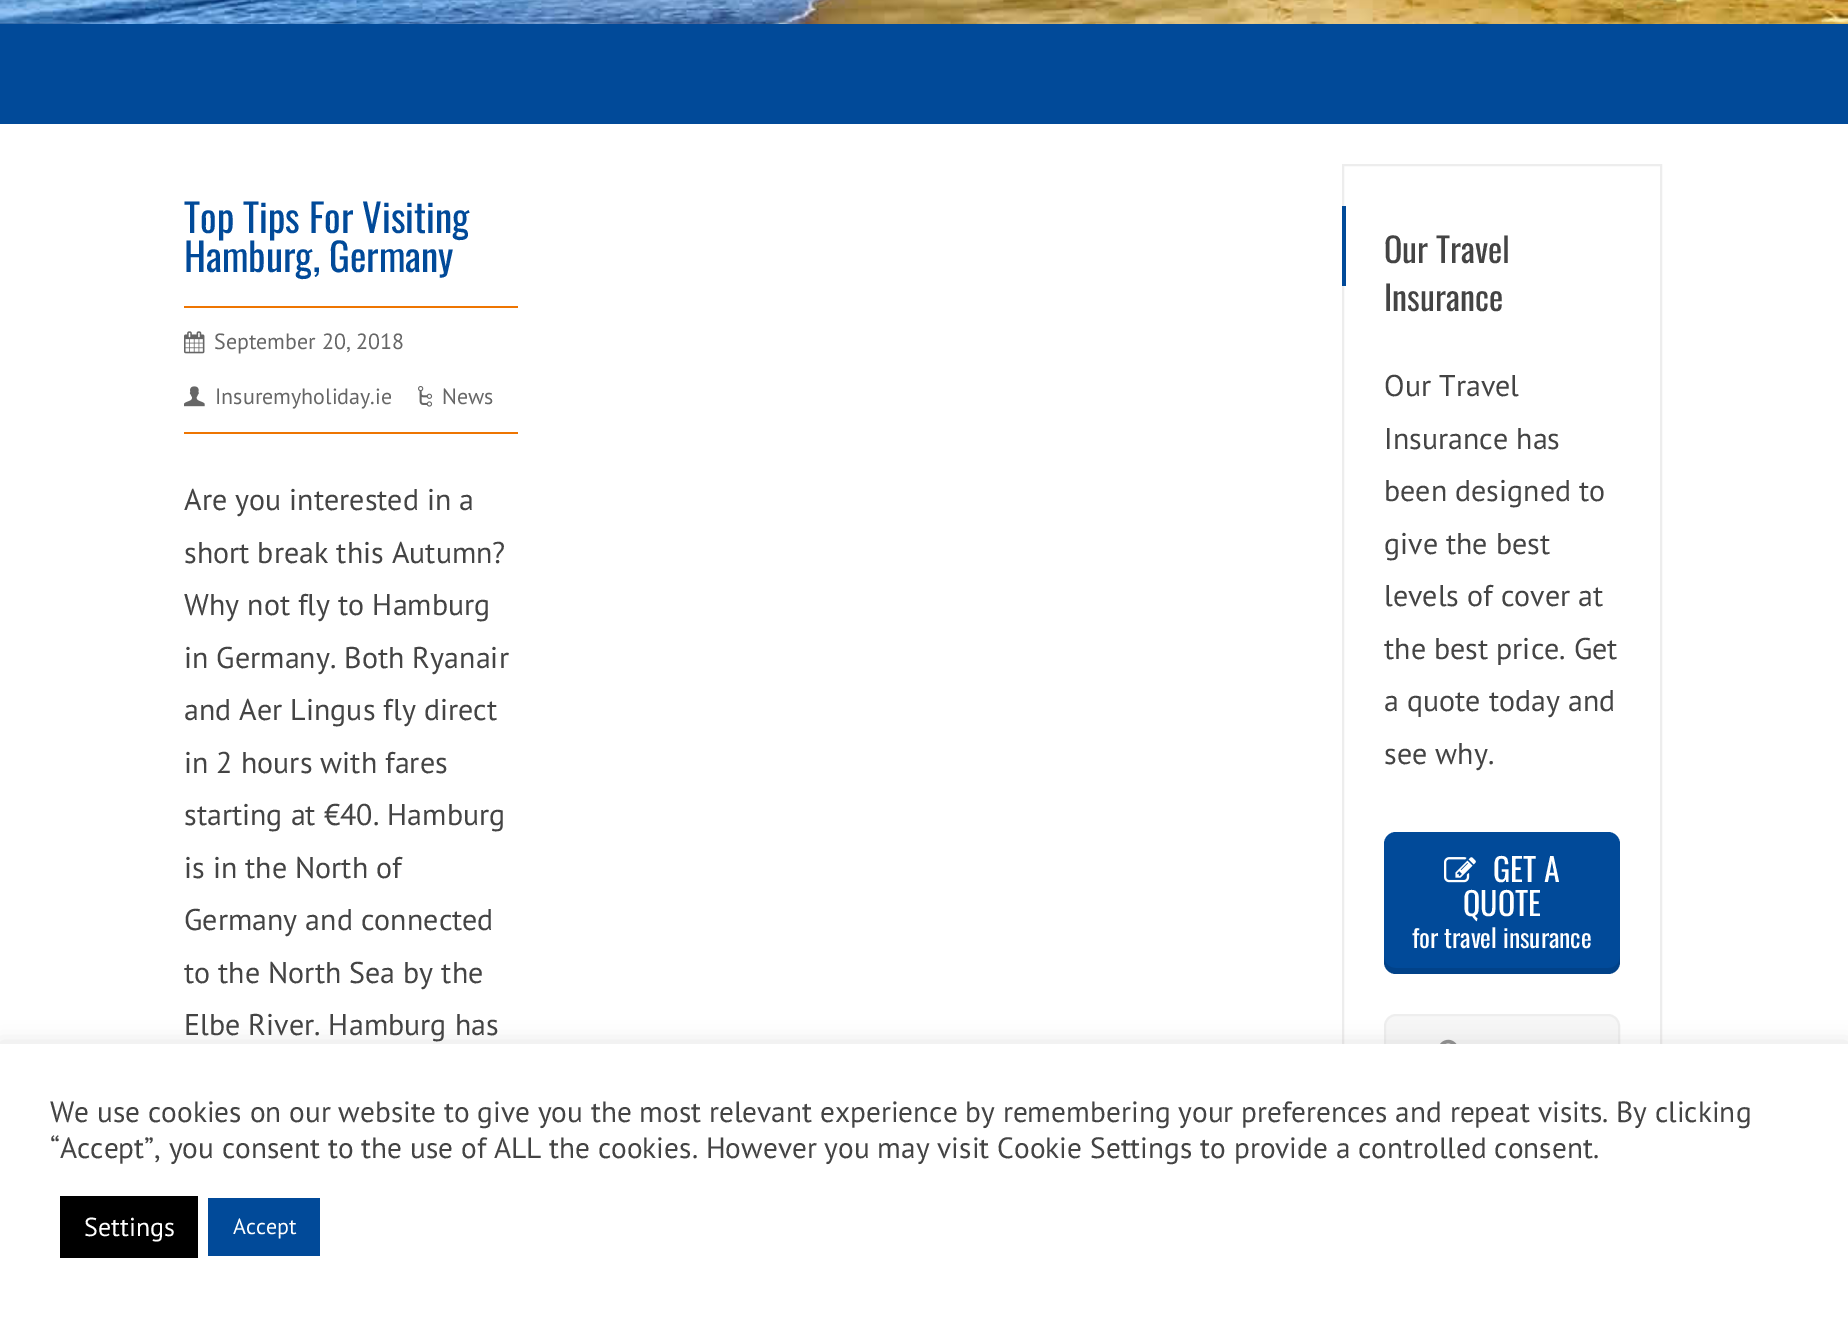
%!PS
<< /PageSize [1848 1317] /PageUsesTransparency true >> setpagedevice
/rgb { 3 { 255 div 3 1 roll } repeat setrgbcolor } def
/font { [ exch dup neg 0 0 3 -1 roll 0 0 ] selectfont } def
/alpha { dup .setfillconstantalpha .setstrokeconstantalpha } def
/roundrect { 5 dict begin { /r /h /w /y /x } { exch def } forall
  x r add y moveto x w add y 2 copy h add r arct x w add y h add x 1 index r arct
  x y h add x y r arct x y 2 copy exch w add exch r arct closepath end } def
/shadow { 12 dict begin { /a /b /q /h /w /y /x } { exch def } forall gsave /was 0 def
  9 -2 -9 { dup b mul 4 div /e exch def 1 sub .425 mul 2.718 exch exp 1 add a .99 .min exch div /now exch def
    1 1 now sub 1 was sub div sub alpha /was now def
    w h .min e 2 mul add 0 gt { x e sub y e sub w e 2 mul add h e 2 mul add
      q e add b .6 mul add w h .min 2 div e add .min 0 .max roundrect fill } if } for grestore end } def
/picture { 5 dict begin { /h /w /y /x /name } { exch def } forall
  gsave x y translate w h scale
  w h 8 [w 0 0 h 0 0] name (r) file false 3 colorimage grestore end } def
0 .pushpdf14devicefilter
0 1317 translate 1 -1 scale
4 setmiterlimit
255 255 255 rgb
0 0 1848 1317 rectfill
(img/1.rgb) 0 0 1848 24 picture
[
  [0 24 1848 100 1 74 153]
  [184 432 334 2 238 117 1]
  [184 306 334 2 238 117 1]
] { aload pop rgb rectfill } forall
(img/2.rgb) 184 331 21 23 picture
(img/3.rgb) 184 386 21 21 picture
(img/4.rgb) 418 386 15 21 picture
237 237 237 rgb
2 setlinewidth
1343 165 318 994 rectstroke
1 74 153 rgb
1342 206 4 80 rectfill
1384 832 236 142 12 roundrect fill
0.1 alpha
0 0 0 rgb
1384 956 moveto 1384 962 lineto 1384 969 1389 974 1396 974 curveto 1608 974 lineto 1615 974 1620 969 1620 962 curveto 1620 956 lineto 1620 963 1615 968 1608 968 curveto 1396 968 lineto 1389 968 1384 963 1384 956 curveto closepath fill
1 alpha
(img/5.rgb) 1444 857 32 26 picture
247 247 247 rgb
1385 1015 234 102 11 roundrect gsave fill grestore
238 238 238 rgb
stroke
(img/6.rgb) 1440 1039 17 5 picture
172 171 171 rgb
0 1042 1848 274 0 10 0.3 shadow
[
  [0 1044 1848 273 255 255 255]
  [60 1196 138 62 0 0 0]
  [208 1198 112 58 1 74 153]
] { aload pop rgb rectfill } forall
/Oswald-Regular 39 font
184 233 moveto (Top Tips For Visiting) show
184 272 moveto (Hamburg, Germany) show
/PTSans-Regular 22 font
102 102 102 rgb
[
  [(September 20, 2018) 214 349]
  [(Insuremyholiday.ie) 215 404]
  [(News) 442 404]
] { aload pop moveto show } forall
/PTSans-Regular 30 font
68 68 68 rgb
[
  [(Are you interested in a) 184 510]
  [(short break this Autumn?) 184 563]
  [(Why not fly to Hamburg) 184 615]
  [(in Germany. Both Ryanair) 184 668]
  [(and Aer Lingus fly direct) 184 720]
  [(in 2 hours with fares) 184 773]
  [(starting at €40. Hamburg) 184 825]
  [(is in the North of) 184 878]
  [(Germany and connected) 184 930]
  [(to the North Sea by the) 184 983]
  [(Elbe River. Hamburg has) 184 1035]
] { aload pop moveto show } forall
/Oswald-Regular 34 font
1384 263 moveto (Our Travel) show
1384 311 moveto (Insurance) show
/PTSans-Regular 30 font
[
  [(Our Travel) 1384 396]
  [(Insurance has) 1384 449]
  [(been designed to) 1384 501]
  [(give the best) 1384 554]
  [(levels of cover at) 1384 606]
  [(the best price. Get) 1384 659]
  [(a quote today and) 1384 711]
  [(see why.) 1384 764]
] { aload pop moveto show } forall
/Oswald-Regular 32 font
255 255 255 rgb
1493 882 moveto (GET A) show
1463 916 moveto (QUOTE) show
/Oswald-Regular 25.5 font
1412 948 moveto (for travel insurance) show
/PTSans-Regular 29.33 font
68 68 68 rgb
50 1122 moveto (We use cookies on our website to give you the most relevant experience by remembering your preferences and repeat visits. By clicking) show
50 1158 moveto (“Accept”, you consent to the use of ALL the cookies. However you may visit Cookie Settings to provide a controlled consent.) show
/PTSans-Regular 26 font
255 255 255 rgb
84 1236 moveto (Settings) show
/PTSans-Regular 22 font
233 1234 moveto (Accept) show
.poppdf14devicefilter showpage
